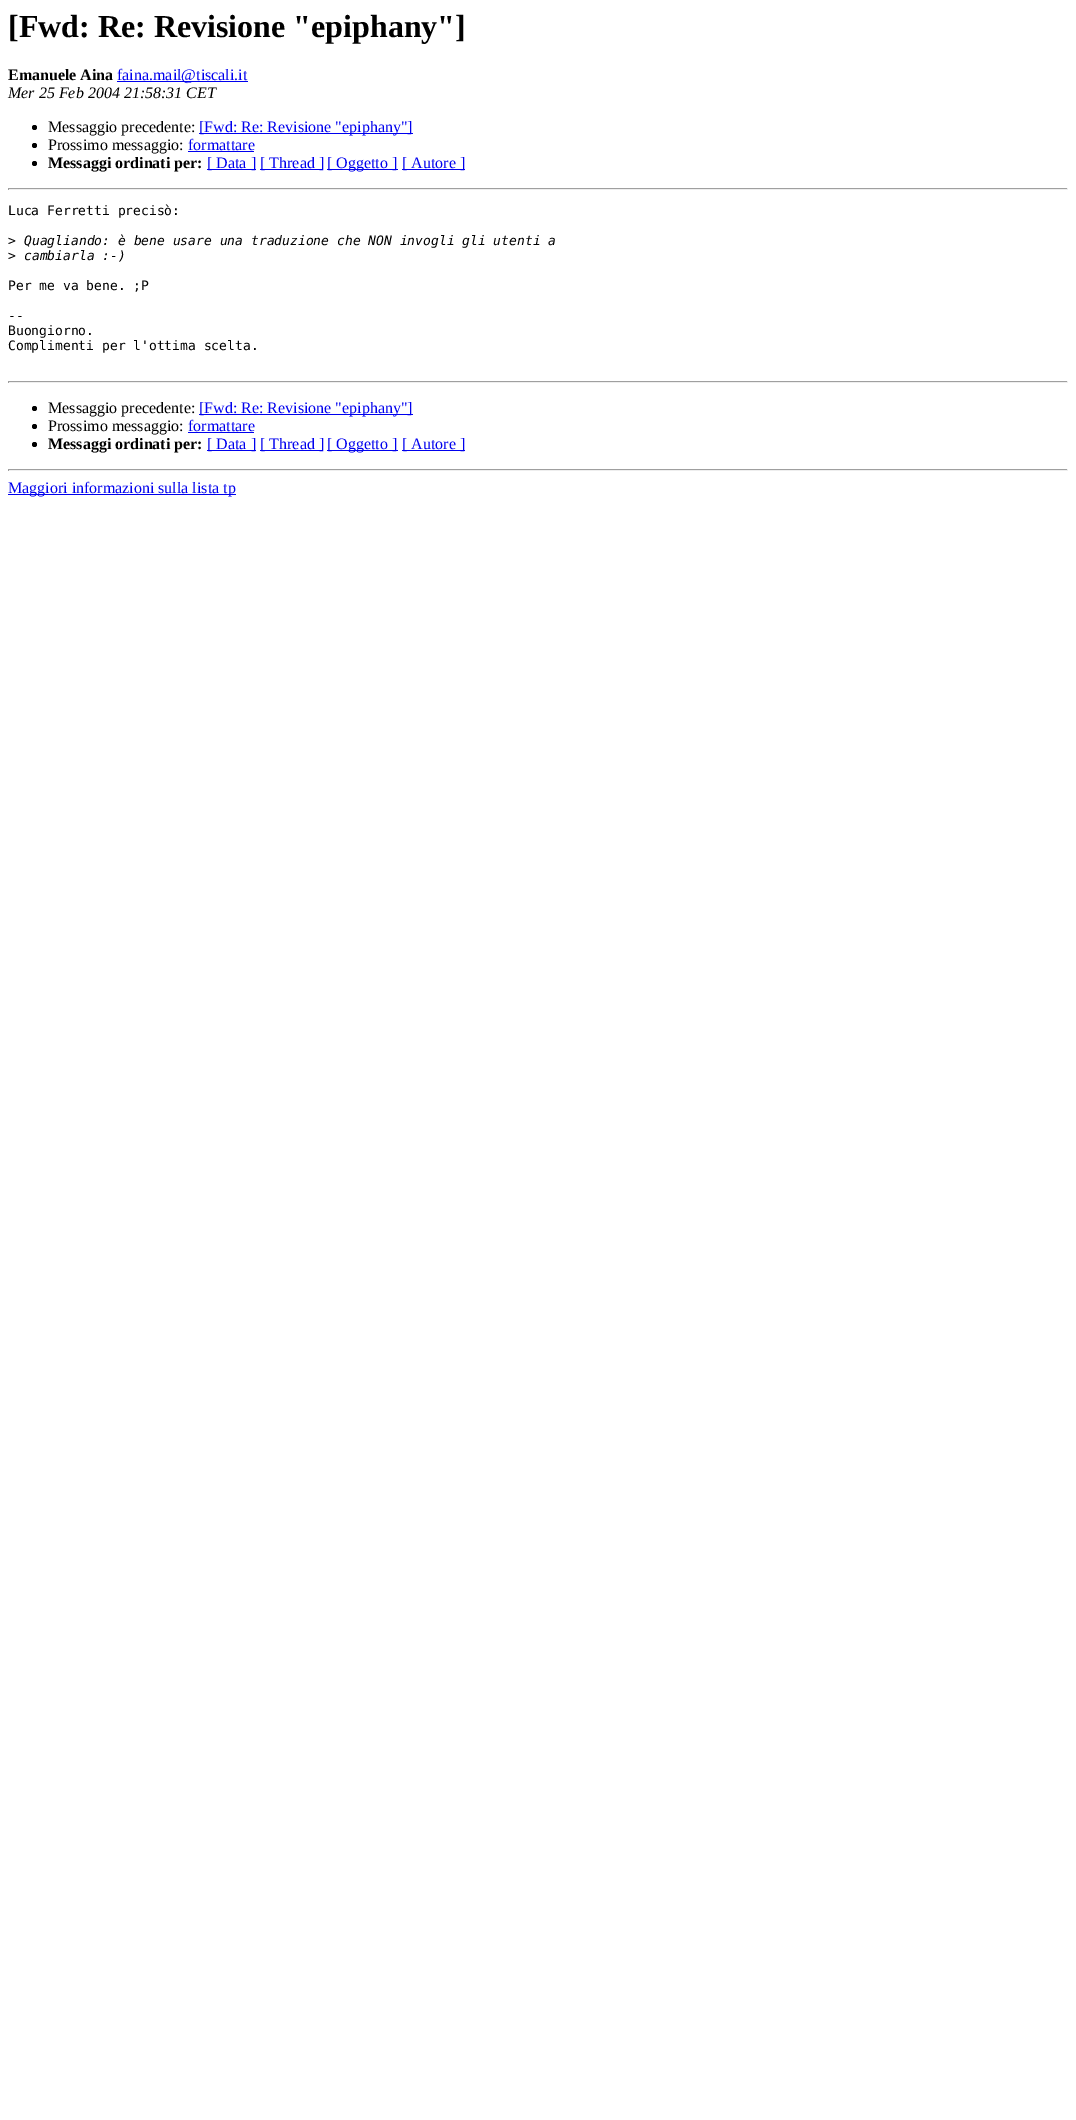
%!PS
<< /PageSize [1076 2120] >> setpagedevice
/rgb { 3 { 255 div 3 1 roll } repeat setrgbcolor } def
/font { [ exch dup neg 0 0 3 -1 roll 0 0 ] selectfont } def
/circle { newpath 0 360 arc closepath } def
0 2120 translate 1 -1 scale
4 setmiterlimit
255 255 255 rgb
0 0 1076 2120 rectfill
0 0 238 rgb
117 81 131 1 rectfill
0 0 0 rgb
34.5 127.5 2.5 circle fill
0 0 238 rgb
199 133 214 1 rectfill
0 0 0 rgb
34.5 145.5 2.5 circle fill
0 0 238 rgb
188 151 66 1 rectfill
0 0 0 rgb
34.5 163.5 2.5 circle fill
[
  [207 169 49 1 0 0 238]
  [260 169 63 1 0 0 238]
  [327 169 71 1 0 0 238]
  [402 169 63 1 0 0 238]
  [8 188 1060 1 159 159 159]
  [1067 188 1 2 238 238 238]
  [8 189 1060 1 238 238 238]
  [8 188 1 2 159 159 159]
  [8 381 1060 1 159 159 159]
  [1067 381 1 2 238 238 238]
  [8 382 1060 1 238 238 238]
  [8 381 1 2 159 159 159]
] { aload pop rgb rectfill } forall
0 0 0 rgb
34.5 408.5 2.5 circle fill
0 0 238 rgb
199 414 214 1 rectfill
0 0 0 rgb
34.5 426.5 2.5 circle fill
0 0 238 rgb
188 432 66 1 rectfill
0 0 0 rgb
34.5 444.5 2.5 circle fill
[
  [207 450 49 1 0 0 238]
  [260 450 63 1 0 0 238]
  [327 450 71 1 0 0 238]
  [402 450 63 1 0 0 238]
  [8 469 1060 1 159 159 159]
  [1067 469 1 2 238 238 238]
  [8 470 1060 1 238 238 238]
  [8 469 1 2 159 159 159]
  [8 494 228 1 0 0 238]
] { aload pop rgb rectfill } forall
/LiberationSerif-Bold 32 font
0 0 0 rgb
8 37 moveto ([Fwd: Re: Revisione "epiphany"]) show
/LiberationSerif-Bold 16 font
8 80 moveto (Emanuele Aina) show
/LiberationSerif-Regular 16 font
0 0 238 rgb
117 80 moveto (faina.mail@tiscali.it) show
/LiberationSerif-Italic 16 font
0 0 0 rgb
8 98 moveto (Mer 25 Feb 2004 21:58:31 CET) show
/LiberationSerif-Regular 16 font
48 132 moveto (Messaggio precedente:) show
0 0 238 rgb
199 132 moveto ([Fwd: Re: Revisione "epiphany"]) show
0 0 0 rgb
48 150 moveto (Prossimo messaggio:) show
0 0 238 rgb
188 150 moveto (formattare) show
/LiberationSerif-Bold 16 font
0 0 0 rgb
48 168 moveto (Messaggi ordinati per:) show
/LiberationSerif-Regular 16 font
0 0 238 rgb
[
  [([ Data ]) 207 168]
  [([ Thread ]) 260 168]
  [([ Oggetto ]) 327 168]
  [([ Autore ]) 402 168]
] { aload pop moveto show } forall
/DejaVuSansMono-Regular 13 font
0 0 0 rgb
8 215 moveto (Luca Ferretti precisò:) show
8 245 moveto (>) show
/DejaVuSansMono-Italic 13 font
24 245 moveto (Quagliando: è bene usare una traduzione che NON invogli gli utenti a) show
/DejaVuSansMono-Regular 13 font
8 260 moveto (>) show
/DejaVuSansMono-Italic 13 font
24 260 moveto (cambiarla :-\)) show
/DejaVuSansMono-Regular 13 font
[
  [(Per me va bene. ;P) 8 290]
  [(--) 8 320]
  [(Buongiorno.) 8 335]
  [(Complimenti per l'ottima scelta.) 8 350]
] { aload pop moveto show } forall
/LiberationSerif-Regular 16 font
48 413 moveto (Messaggio precedente:) show
0 0 238 rgb
199 413 moveto ([Fwd: Re: Revisione "epiphany"]) show
0 0 0 rgb
48 431 moveto (Prossimo messaggio:) show
0 0 238 rgb
188 431 moveto (formattare) show
/LiberationSerif-Bold 16 font
0 0 0 rgb
48 449 moveto (Messaggi ordinati per:) show
/LiberationSerif-Regular 16 font
0 0 238 rgb
[
  [([ Data ]) 207 449]
  [([ Thread ]) 260 449]
  [([ Oggetto ]) 327 449]
  [([ Autore ]) 402 449]
  [(Maggiori informazioni sulla lista tp) 8 493]
] { aload pop moveto show } forall
showpage
